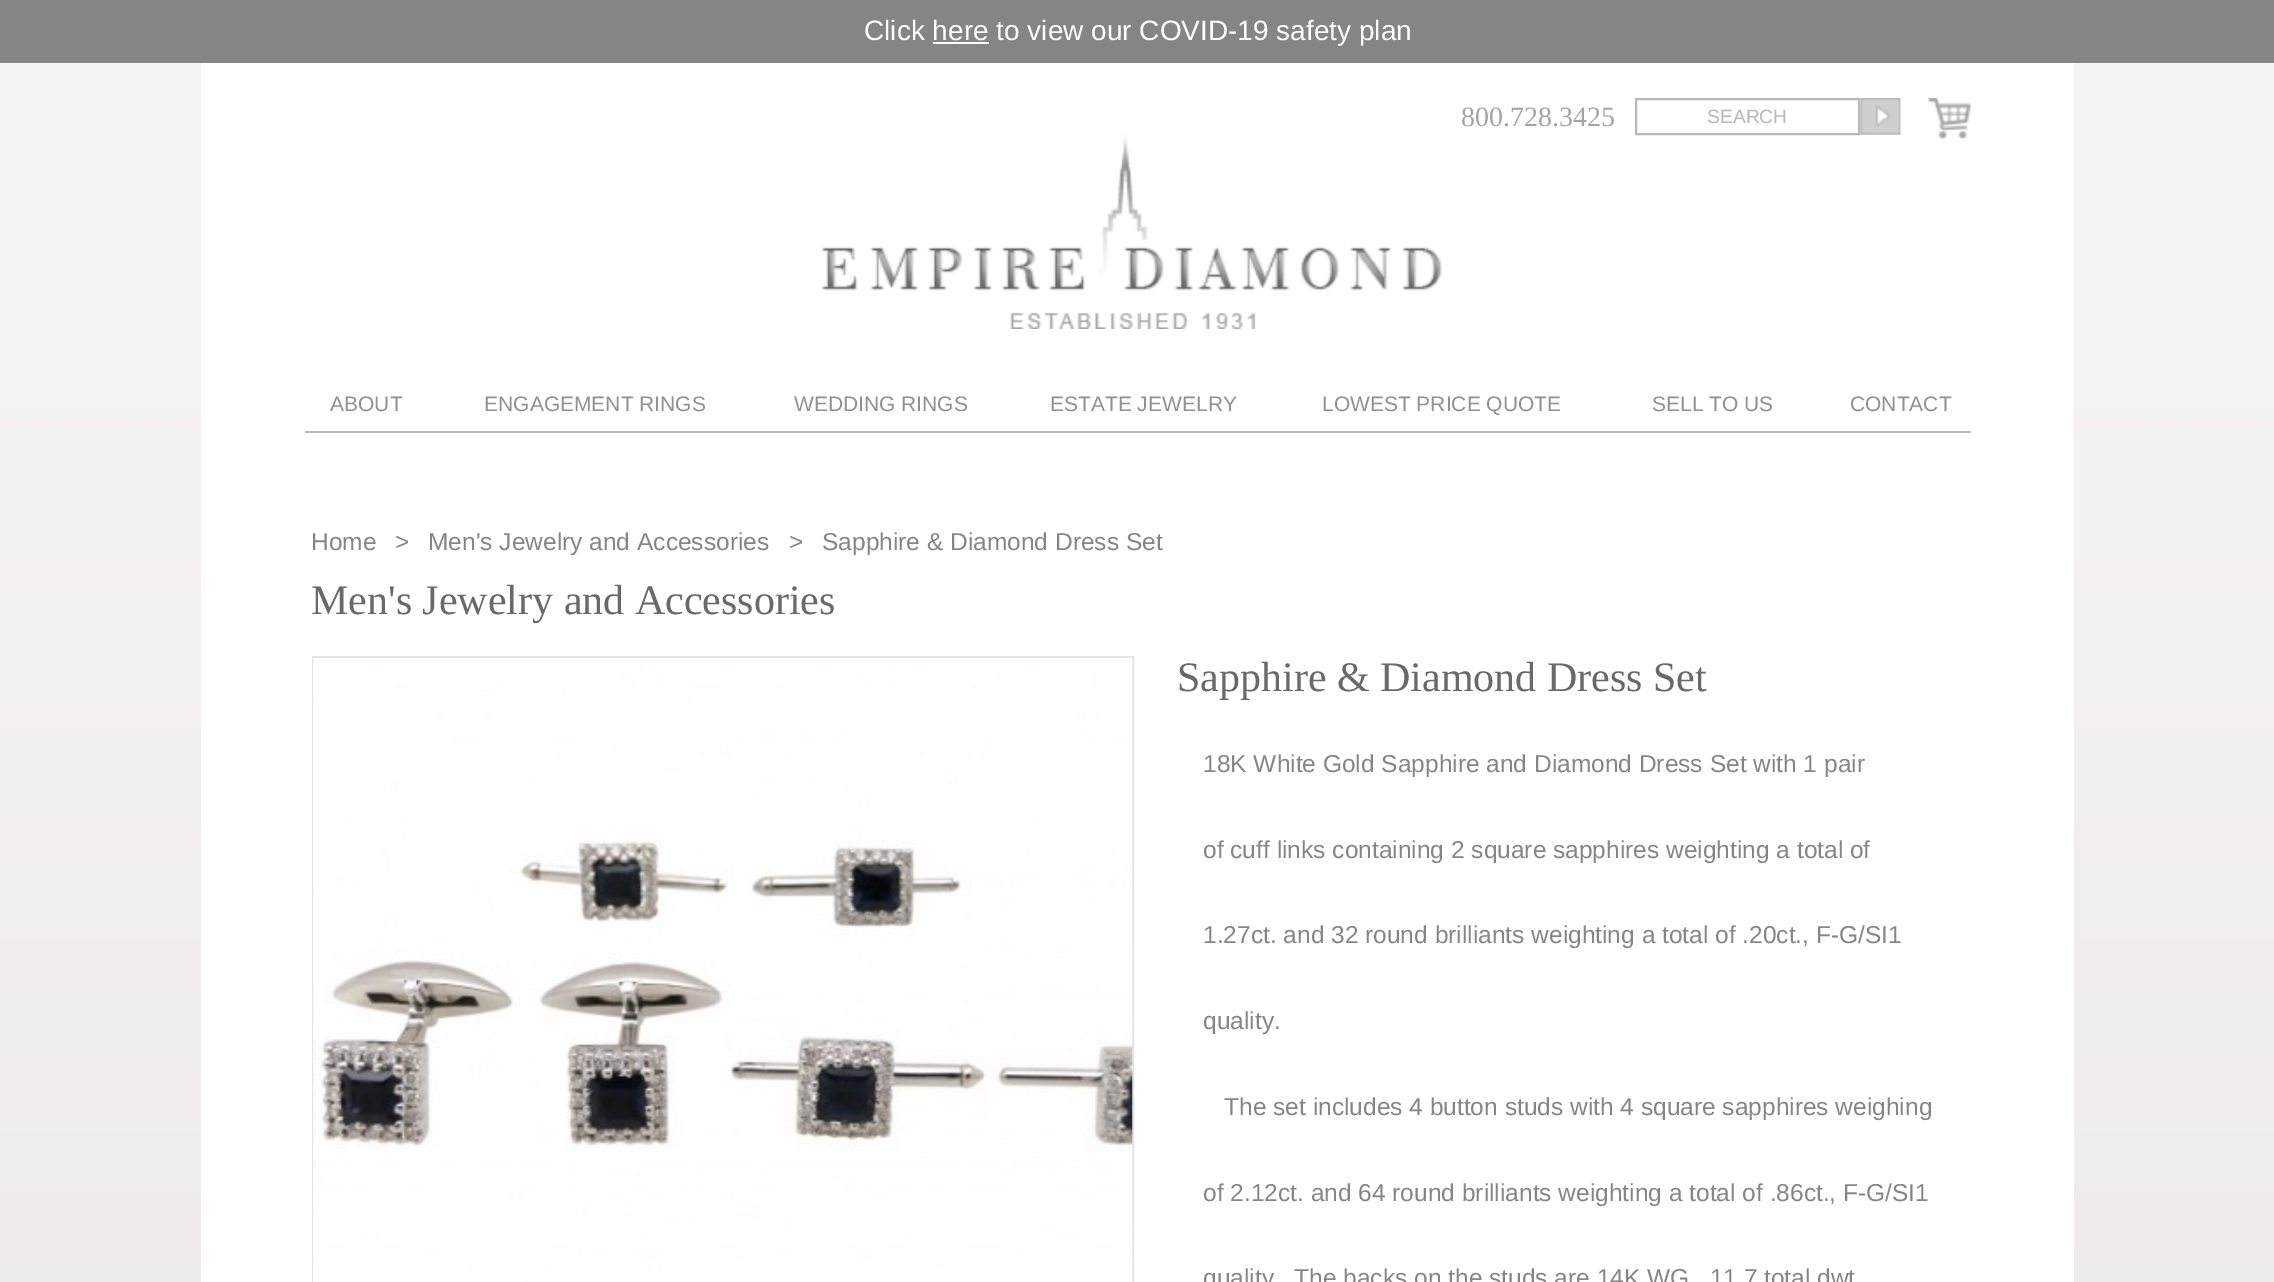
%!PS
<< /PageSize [2274 1282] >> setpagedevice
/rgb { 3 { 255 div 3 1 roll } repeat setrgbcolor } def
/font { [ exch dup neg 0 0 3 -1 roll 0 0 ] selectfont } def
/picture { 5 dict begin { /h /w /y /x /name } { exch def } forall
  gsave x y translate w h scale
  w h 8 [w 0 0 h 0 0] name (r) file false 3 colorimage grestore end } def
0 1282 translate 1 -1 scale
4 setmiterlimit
255 255 255 rgb
0 0 2274 1282 rectfill
(img/1.rgb) 0 63 2274 1219 picture
[
  [0 0 2274 63 133 133 133]
  [933 42 56 2 255 255 255]
  [201 63 1873 1219 255 255 255]
] { aload pop rgb rectfill } forall
185 184 184 rgb
2 setlinewidth
1636 99 223 35 rectstroke
(img/2.rgb) 1860 98 41 37 picture
(img/3.rgb) 1928 98 43 41 picture
(img/4.rgb) 821 135 621 194 picture
305 431 1666 2 rectfill
229 229 230 rgb
313 657 820 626 rectstroke
(img/5.rgb) 313 658 820 624 picture
/LiberationSans-Regular 28 font
255 255 255 rgb
864 40 moveto (Click here to view our COVID-19 safety plan) show
/LiberationSerif-Regular 28 font
165 164 164 rgb
1461 126 moveto (800.728.3425) show
/LiberationSans-Regular 19.25 font
184 184 184 rgb
1707 123 moveto (SEARCH) show
/LiberationSans-Regular 21 font
146 145 145 rgb
[
  [(ABOUT) 330 411]
  [(ENGAGEMENT RINGS) 484 411]
  [(WEDDING RINGS) 794 411]
  [(ESTATE JEWELRY) 1050 411]
  [(LOWEST PRICE QUOTE) 1322 411]
  [(SELL TO US) 1652 411]
  [(CONTACT) 1850 411]
] { aload pop moveto show } forall
/LiberationSans-Regular 24.5 font
133 133 133 rgb
[
  [(Home) 311 550]
  [(>) 395 550]
  [(Men's Jewelry and Accessories) 428 550]
  [(>) 789 550]
  [(Sapphire & Diamond Dress Set) 822 550]
] { aload pop moveto show } forall
/LiberationSerif-Regular 42 font
105 105 105 rgb
311 614 moveto (Men's Jewelry and Accessories) show
1177 691 moveto (Sapphire & Diamond Dress Set) show
/LiberationSans-Regular 24.5 font
133 133 133 rgb
[
  [(18K White Gold Sapphire and Diamond Dress Set with 1 pair) 1203 772]
  [(of cuff links containing 2 square sapphires weighting a total of) 1203 858]
  [(1.27ct. and 32 round brilliants weighting a total of .20ct., F-G/SI1) 1203 943]
  [(quality.) 1203 1029]
  [(The set includes 4 button studs with 4 square sapphires weighing) 1224 1115]
  [(of 2.12ct. and 64 round brilliants weighting a total of .86ct., F-G/SI1) 1203 1201]
  [(quality.  The backs on the studs are 14K WG.  11.7 total dwt) 1203 1286]
] { aload pop moveto show } forall
showpage
